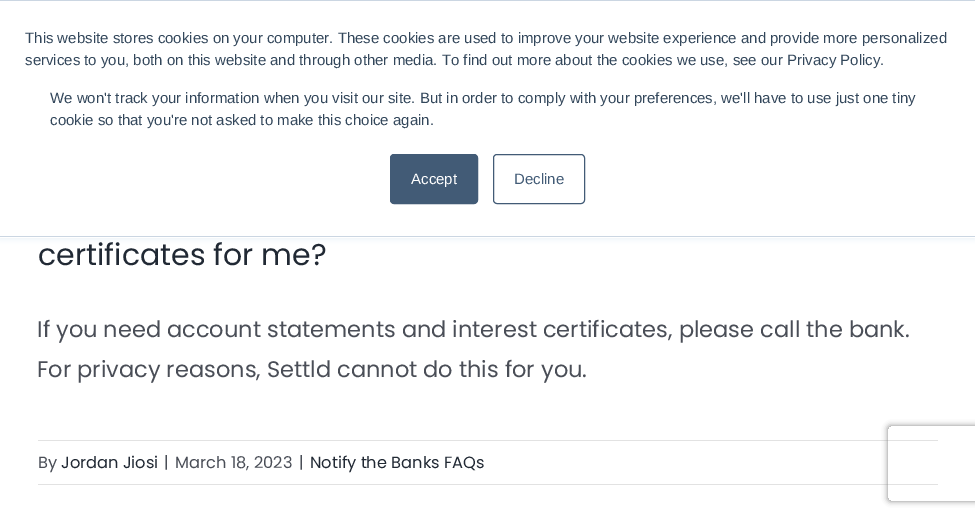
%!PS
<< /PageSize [975 518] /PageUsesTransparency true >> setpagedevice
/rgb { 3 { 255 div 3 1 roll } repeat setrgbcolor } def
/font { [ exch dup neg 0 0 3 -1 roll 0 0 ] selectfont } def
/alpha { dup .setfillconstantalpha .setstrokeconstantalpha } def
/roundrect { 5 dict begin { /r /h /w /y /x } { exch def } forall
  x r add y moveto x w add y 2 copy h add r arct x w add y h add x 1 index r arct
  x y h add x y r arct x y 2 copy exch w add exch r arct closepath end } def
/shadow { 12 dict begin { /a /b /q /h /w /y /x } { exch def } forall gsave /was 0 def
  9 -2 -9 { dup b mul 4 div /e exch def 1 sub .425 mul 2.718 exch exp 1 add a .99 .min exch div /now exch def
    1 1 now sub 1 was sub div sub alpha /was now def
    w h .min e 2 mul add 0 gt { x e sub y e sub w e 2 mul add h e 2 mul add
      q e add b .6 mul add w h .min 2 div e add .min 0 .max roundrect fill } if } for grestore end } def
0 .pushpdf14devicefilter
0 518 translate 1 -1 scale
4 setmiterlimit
255 255 255 rgb
0 0 975 518 rectfill
234 240 246 rgb
0 1 975 238 0 3 1 shadow
[
  [0 1 975 237 255 255 255]
  [0 0 975 1 203 214 226]
  [0 236 975 1 203 214 226]
] { aload pop rgb rectfill } forall
66 91 118 rgb
390.5 154.5 87 49 3.5 roundrect gsave fill grestore
stroke
493.5 154.5 91 49 3.5 roundrect stroke
226 226 226 rgb
38 440 900 1 rectfill
38 484 900 1 rectfill
gsave
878 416 moveto 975 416 lineto 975 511 lineto 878 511 lineto closepath 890.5 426 moveto 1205.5 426 lineto 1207 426 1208 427 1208 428.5 curveto 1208 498.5 lineto 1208 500 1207 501 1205.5 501 curveto 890.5 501 lineto 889 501 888 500 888 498.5 curveto 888 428.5 lineto 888 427 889 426 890.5 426 curveto closepath eoclip newpath
128 128 128 rgb
888 426 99 75 2.5 3 1 shadow
grestore
/LiberationSans-Regular 15 font
51 71 91 rgb
[
  [(This website stores cookies on your computer. These cookies are used to improve your website experience and provide more personalized) 25 43]
  [(services to you, both on this website and through other media. To find out more about the cookies we use, see our Privacy Policy.) 25 65]
  [(We won't track your information when you visit our site. But in order to comply with your preferences, we'll have to use just one tiny) 50 103]
  [(cookie so that you're not asked to make this choice again.) 50 125]
] { aload pop moveto show } forall
255 255 255 rgb
411 184 moveto (Accept) show
66 91 118 rgb
514 184 moveto (Decline) show
/Poppins-Regular 30 font
33 41 52 rgb
38 265 moveto (certificates for me?) show
/Poppins-Regular 22.5 font
74 78 87 rgb
37 337 moveto (If you need account statements and interest certificates, please call the bank.) show
37 377 moveto (For privacy reasons, Settld cannot do this for you.) show
/Poppins-Regular 16.25 font
38 468 moveto (By) show
33 41 52 rgb
61 468 moveto (Jordan Jiosi) show
74 78 87 rgb
[
  [(|) 164 468]
  [(March 18, 2023) 175 468]
  [(|) 299 468]
] { aload pop moveto show } forall
33 41 52 rgb
310 468 moveto (Notify the Banks FAQs) show
.poppdf14devicefilter showpage
